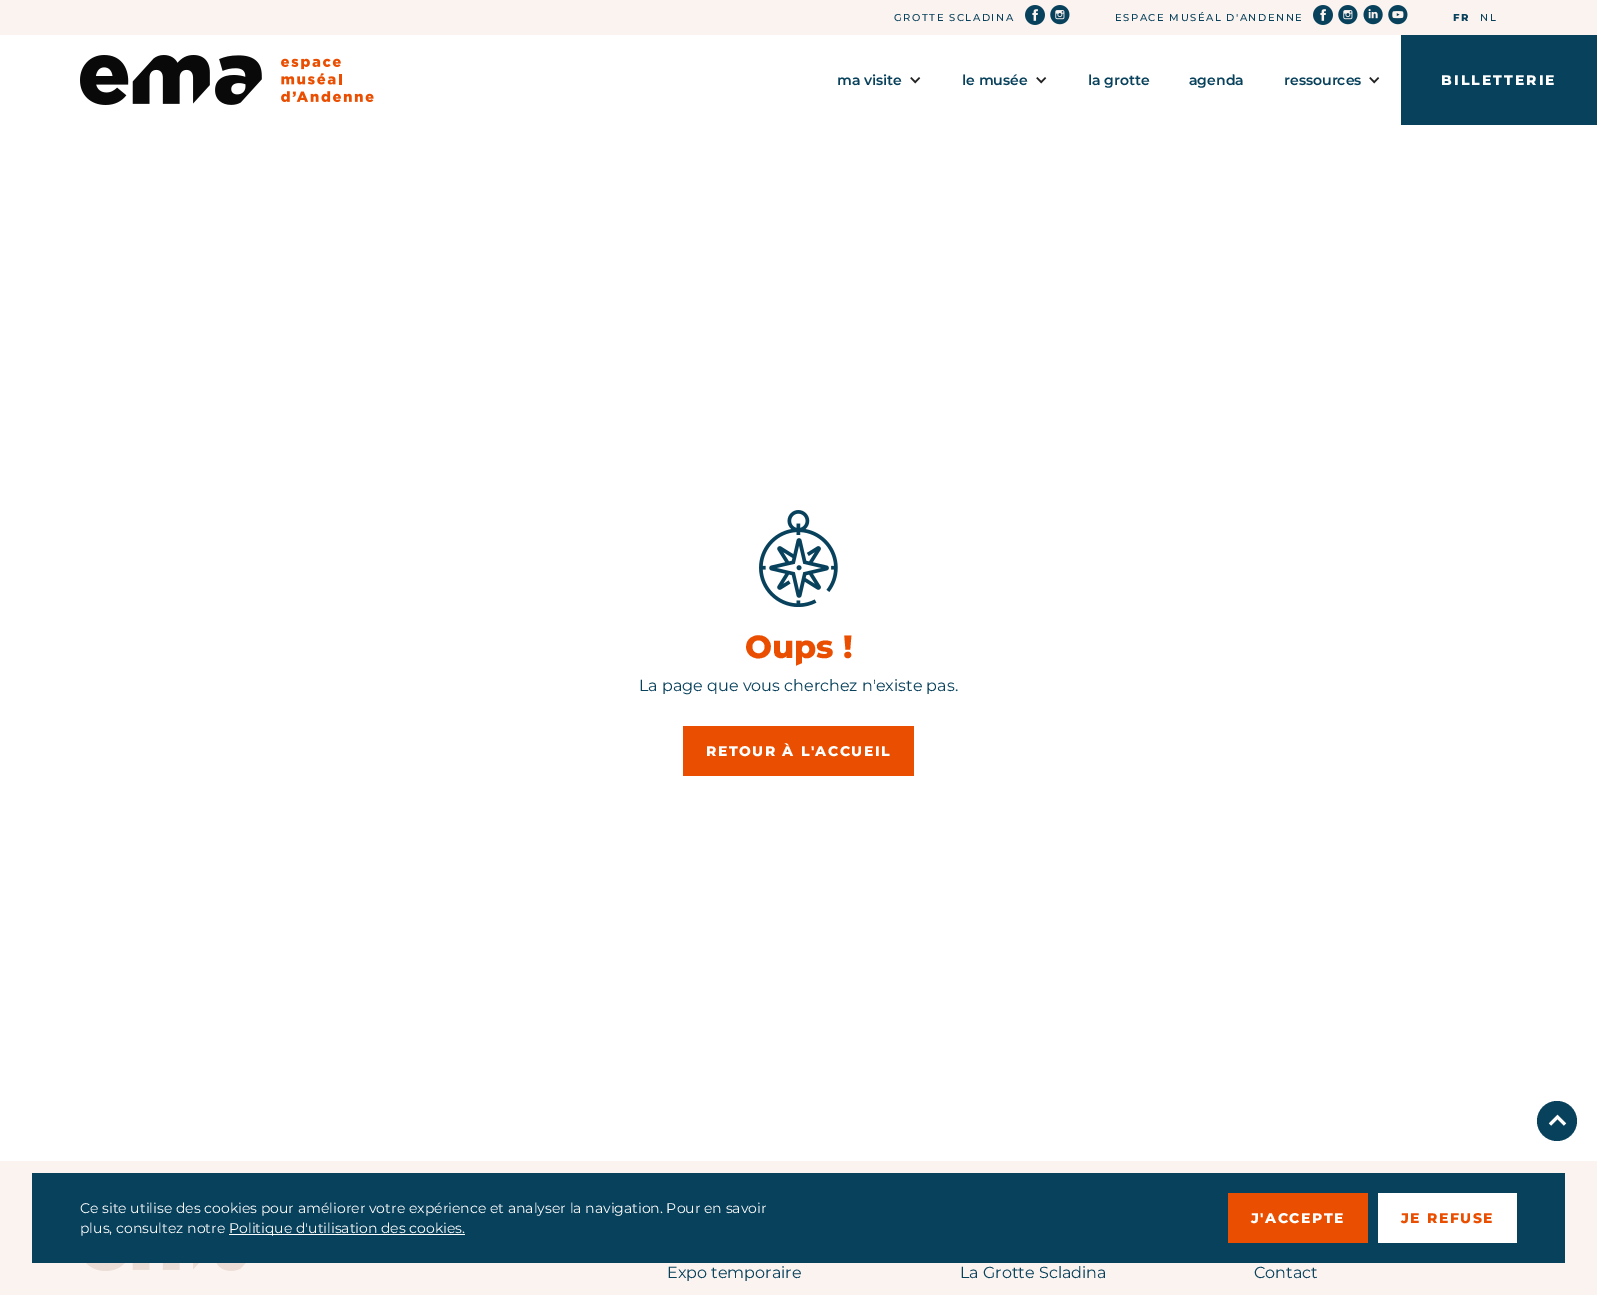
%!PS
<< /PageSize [1597 1295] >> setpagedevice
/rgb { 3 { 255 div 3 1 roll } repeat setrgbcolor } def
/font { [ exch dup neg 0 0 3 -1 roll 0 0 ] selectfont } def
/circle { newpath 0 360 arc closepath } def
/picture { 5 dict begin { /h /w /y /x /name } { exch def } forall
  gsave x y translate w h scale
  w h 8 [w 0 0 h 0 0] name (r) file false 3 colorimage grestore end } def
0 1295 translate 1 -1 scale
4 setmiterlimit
255 255 255 rgb
0 0 1597 1295 rectfill
(img/1.rgb) 80 55 294 50 picture
251 243 239 rgb
0 0 1597 35 rectfill
(img/2.rgb) 1025 5 20 20 picture
(img/3.rgb) 1050 5 20 20 picture
(img/2.rgb) 1313 5 20 20 picture
(img/3.rgb) 1338 5 20 20 picture
(img/4.rgb) 1363 5 20 20 picture
(img/5.rgb) 1388 5 20 20 picture
(img/6.rgb) 910 77 11 7 picture
(img/6.rgb) 1036 77 11 7 picture
(img/6.rgb) 1369 77 11 7 picture
8 65 92 rgb
1401 35 196 90 rectfill
(img/7.rgb) 759 510 79 97 picture
[
  [683 726 231 50 234 78 0]
  [0 1161 1597 134 251 243 239]
  [32 1173 1533 90 8 65 92]
  [229 1234 236 1 255 255 255]
  [1228 1193 140 50 234 78 0]
  [1378 1193 139 50 255 255 255]
] { aload pop rgb rectfill } forall
8 65 92 rgb
1557 1121 20 circle fill
255 255 255 rgb
3 setlinewidth
1550 1124.5 moveto 1557.5 1117 lineto 1565 1124.5 lineto stroke
(img/8.rgb) 86 1263 160 8 picture
/Montserrat-Medium 10 font
8 65 92 rgb
894 21 moveto 1.5 0 (GROTTE SCLADINA) ashow
1115 21 moveto 1.5 0 (ESPACE MUSÉAL D'ANDENNE) ashow
/Montserrat-ExtraBold 10 font
1453 21 moveto 1.5 0 (FR) ashow
/Montserrat-Medium 10 font
1480 21 moveto 1.5 0 (NL) ashow
/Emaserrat-SemiBold 14 font
[
  [(ma visite) 837 85]
  [(le musée) 962 85]
  [(la grotte) 1088 85]
  [(agenda) 1189 85]
  [(ressources) 1284 85]
] { aload pop moveto show } forall
/Montserrat-ExtraBold 14 font
255 255 255 rgb
1441 85 moveto 2 0 (BILLETTERIE) ashow
/Emaserrat-ExtraBold 32 font
234 78 0 rgb
745 658 moveto (Oups !) show
/Montserrat-Regular 16 font
8 65 92 rgb
639 691 moveto (La page que vous cherchez n'existe pas.) show
/Montserrat-ExtraBold 14 font
255 255 255 rgb
706 756 moveto 1.5 0 (RETOUR À L'ACCUEIL) ashow
/Montserrat-Regular 14 font
[
  [(Ce site utilise des cookies pour améliorer votre expérience et analyser la navigation. Pour en savoir) 80 1213]
  [(plus, consultez notre) 80 1233]
  [(Politique d'utilisation des cookies.) 229 1233]
] { aload pop moveto show } forall
/Montserrat-ExtraBold 14 font
1251 1223 moveto 1.5 0 (J'ACCEPTE) ashow
234 78 0 rgb
1401 1223 moveto 1.5 0 (JE REFUSE) ashow
/Montserrat-Regular 16 font
8 65 92 rgb
[
  [(Expo temporaire) 667 1278]
  [(La Grotte Scladina) 960 1278]
  [(Contact) 1254 1278]
] { aload pop moveto show } forall
showpage
